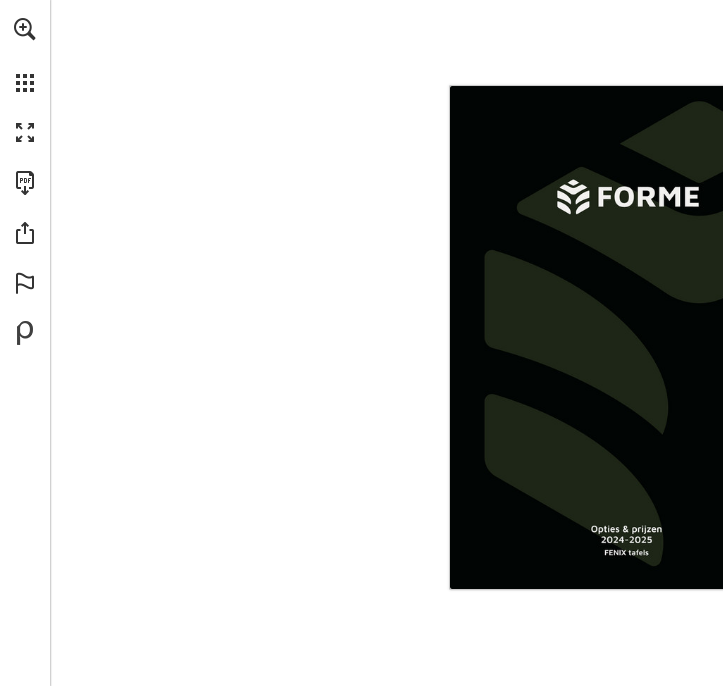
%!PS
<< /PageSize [723 686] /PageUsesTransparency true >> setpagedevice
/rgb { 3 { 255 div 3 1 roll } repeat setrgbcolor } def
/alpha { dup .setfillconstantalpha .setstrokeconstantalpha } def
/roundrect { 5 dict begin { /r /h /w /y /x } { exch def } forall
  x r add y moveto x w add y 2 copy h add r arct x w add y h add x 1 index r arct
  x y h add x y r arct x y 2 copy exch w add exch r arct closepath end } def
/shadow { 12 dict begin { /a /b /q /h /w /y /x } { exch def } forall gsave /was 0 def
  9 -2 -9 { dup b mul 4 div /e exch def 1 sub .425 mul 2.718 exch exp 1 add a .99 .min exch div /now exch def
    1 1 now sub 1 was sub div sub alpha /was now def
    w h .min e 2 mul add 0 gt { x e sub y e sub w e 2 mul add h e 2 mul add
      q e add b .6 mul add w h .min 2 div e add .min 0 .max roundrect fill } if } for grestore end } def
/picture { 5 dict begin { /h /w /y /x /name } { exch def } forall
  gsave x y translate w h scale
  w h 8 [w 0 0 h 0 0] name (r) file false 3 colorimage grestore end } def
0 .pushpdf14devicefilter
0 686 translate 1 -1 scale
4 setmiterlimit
255 255 255 rgb
0 0 723 686 rectfill
0 0 0 rgb
1 0 50 686 0 0.5 0.2 shadow
255 255 255 rgb
0 0 50 686 rectfill
(img/1.rgb) 14 18 22 23 picture
(img/2.rgb) 16 74 18 18 picture
(img/3.rgb) 16 123 18 19 picture
(img/4.rgb) 16 171 18 24 picture
(img/5.rgb) 16 222 18 22 picture
(img/6.rgb) 16 272 18 22 picture
(img/7.rgb) 17 321 16 24 picture
18 18 18 rgb
448 84 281 507 3 1 0.05 shadow
255 255 255 rgb
449.5 85.5 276 504 1.5 roundrect gsave fill grestore
204 204 204 rgb
stroke
(img/8.rgb) 450 86 273 503 picture
.poppdf14devicefilter showpage
